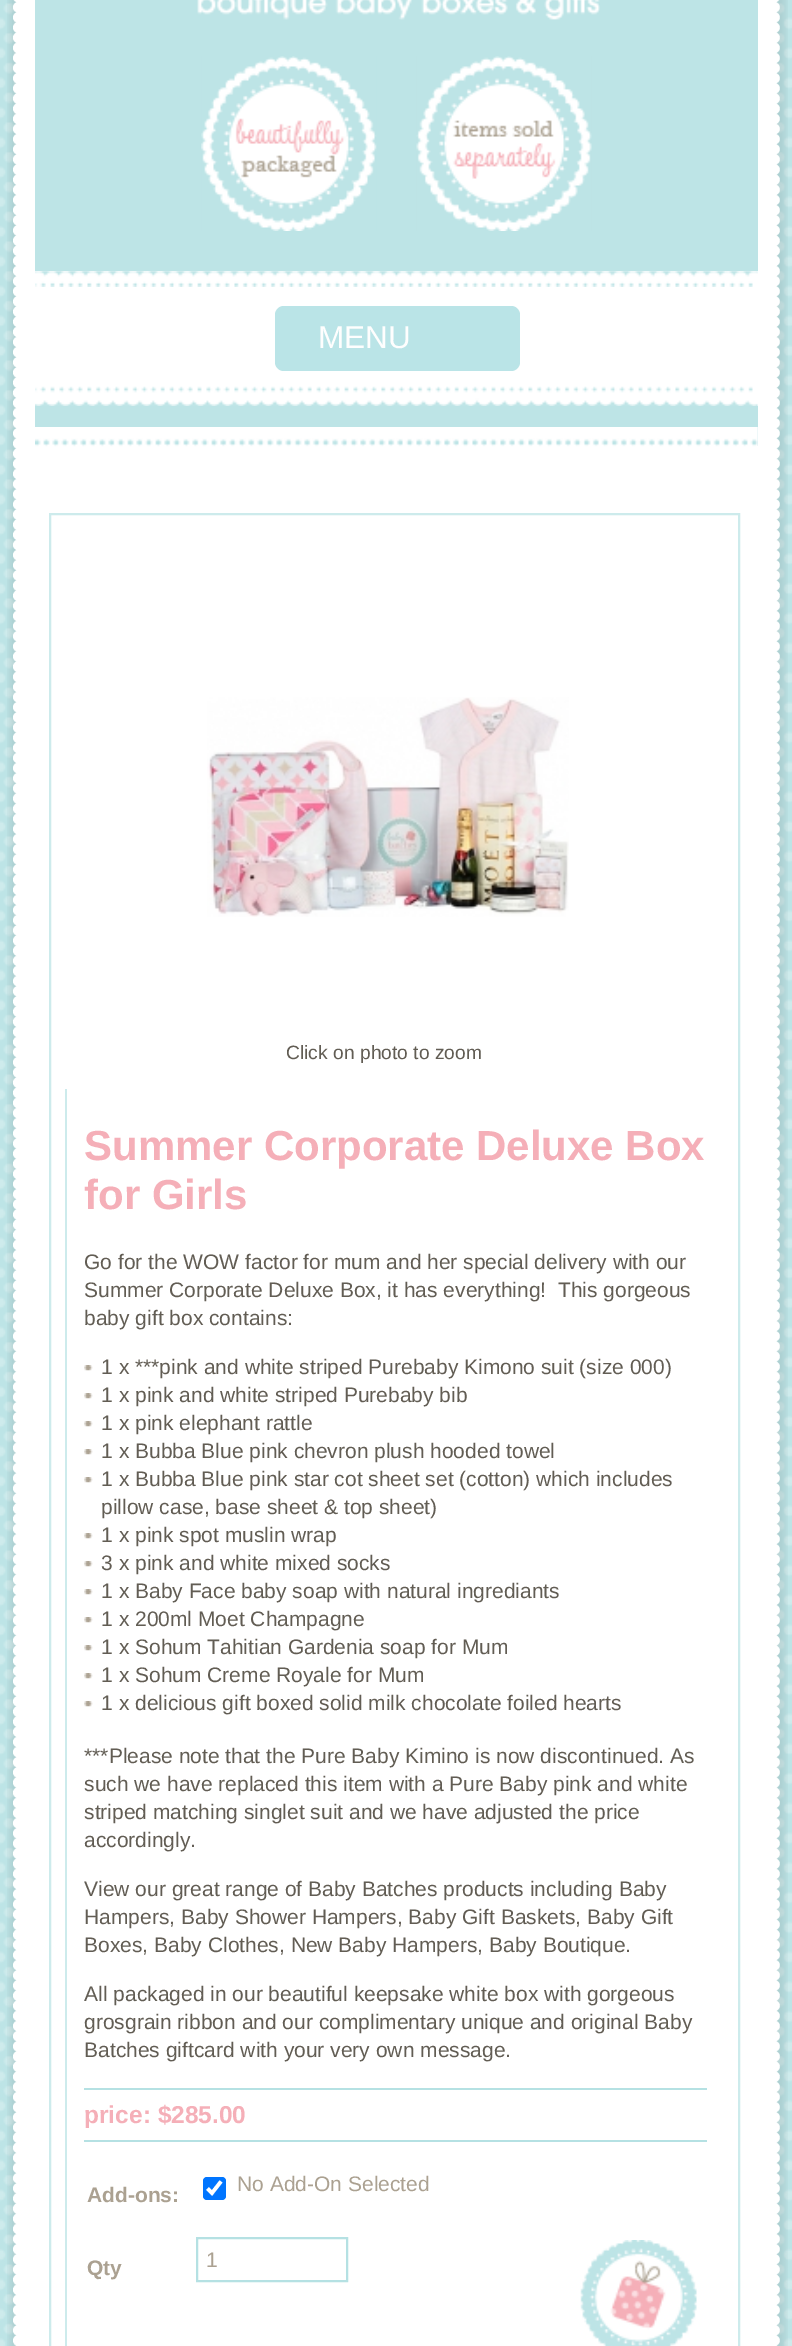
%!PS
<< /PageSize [792 2346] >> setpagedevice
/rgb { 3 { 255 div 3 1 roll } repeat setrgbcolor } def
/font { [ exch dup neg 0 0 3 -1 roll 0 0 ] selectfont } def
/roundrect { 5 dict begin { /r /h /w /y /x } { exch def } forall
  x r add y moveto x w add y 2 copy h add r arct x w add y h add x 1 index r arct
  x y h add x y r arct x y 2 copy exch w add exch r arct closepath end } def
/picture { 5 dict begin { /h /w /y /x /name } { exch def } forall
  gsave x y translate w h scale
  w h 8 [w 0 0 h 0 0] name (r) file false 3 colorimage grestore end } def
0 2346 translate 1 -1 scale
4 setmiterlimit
255 255 255 rgb
0 0 792 2346 rectfill
(img/1.rgb) 0 0 792 2346 picture
(img/2.rgb) 7 0 781 2346 picture
189 228 230 rgb
35 0 723 446 rectfill
(img/3.rgb) 35 427 723 20 picture
(img/4.rgb) 197 0 403 20 picture
(img/5.rgb) 201 56 176 175 picture
(img/6.rgb) 416 56 176 175 picture
255 255 255 rgb
35 271 723 135 rectfill
(img/7.rgb) 35 271 723 16 picture
(img/8.rgb) 35 386 723 20 picture
186 228 231 rgb
275 306 245 65 9 roundrect fill
205 235 236 rgb
2 setlinewidth
50 514 689 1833 rectstroke
(img/9.rgb) 207 697 362 220 picture
65 1089 2 1257 rectfill
(img/10.rgb) 84 1365 9 6 picture
(img/10.rgb) 84 1393 9 6 picture
(img/10.rgb) 84 1421 9 6 picture
(img/10.rgb) 84 1449 9 6 picture
(img/10.rgb) 84 1477 9 6 picture
(img/10.rgb) 84 1533 9 6 picture
(img/10.rgb) 84 1561 9 6 picture
(img/10.rgb) 84 1589 9 6 picture
(img/10.rgb) 84 1617 9 6 picture
(img/10.rgb) 84 1645 9 6 picture
(img/10.rgb) 84 1673 9 6 picture
(img/10.rgb) 84 1701 9 6 picture
181 225 227 rgb
84 2088 623 2 rectfill
84 2140 623 2 rectfill
0 117 255 rgb
203 2177 23 23 4 roundrect fill
255 255 255 rgb
3.6 setlinewidth
207.5 2188.5 moveto 212 2193 lineto 221 2181.5 lineto stroke
181 225 227 rgb
2 setlinewidth
197 2238 150 43 rectstroke
(img/11.rgb) 580 2240 117 106 picture
/LiberationSans-Regular 31.5 font
254 254 254 rgb
318 348 moveto (MENU) show
/LiberationSans-Regular 19.25 font
98 93 84 rgb
286 1059 moveto (Click on photo to zoom) show
/LiberationSans-Bold 42 font
245 175 184 rgb
84 1160 moveto (Summer Corporate Deluxe Box) show
84 1209 moveto (for Girls) show
/LiberationSans-Regular 21 font
98 93 84 rgb
[
  [(Go for the WOW factor for mum and her special delivery with our) 84 1269]
  [(Summer Corporate Deluxe Box, it has everything!  This gorgeous) 84 1297]
  [(baby gift box contains:) 84 1325]
  [(1 x ***pink and white striped Purebaby Kimono suit \(size 000\)) 101 1374]
  [(1 x pink and white striped Purebaby bib) 101 1402]
  [(1 x pink elephant rattle) 101 1430]
  [(1 x Bubba Blue pink chevron plush hooded towel) 101 1458]
  [(1 x Bubba Blue pink star cot sheet set \(cotton\) which includes) 101 1486]
  [(pillow case, base sheet & top sheet\)) 101 1514]
  [(1 x pink spot muslin wrap) 101 1542]
  [(3 x pink and white mixed socks) 101 1570]
  [(1 x Baby Face baby soap with natural ingrediants) 101 1598]
  [(1 x 200ml Moet Champagne) 101 1626]
  [(1 x Sohum Tahitian Gardenia soap for Mum) 101 1654]
  [(1 x Sohum Creme Royale for Mum) 101 1682]
  [(1 x delicious gift boxed solid milk chocolate foiled hearts) 101 1710]
  [(***Please note that the Pure Baby Kimino is now discontinued. As) 84 1763]
  [(such we have replaced this item with a Pure Baby pink and white) 84 1791]
  [(striped matching singlet suit and we have adjusted the price) 84 1819]
  [(accordingly.) 84 1847]
  [(View our great range of Baby Batches products including Baby) 84 1896]
  [(Hampers, Baby Shower Hampers, Baby Gift Baskets, Baby Gift) 84 1924]
  [(Boxes, Baby Clothes, New Baby Hampers, Baby Boutique.) 84 1952]
  [(All packaged in our beautiful keepsake white box with gorgeous) 84 2001]
  [(grosgrain ribbon and our complimentary unique and original Baby) 84 2029]
  [(Batches giftcard with your very own message.) 84 2057]
] { aload pop moveto show } forall
/LiberationSans-Bold 24.5 font
245 175 184 rgb
84 2123 moveto (price: $285.00) show
/LiberationSans-Regular 21 font
171 161 145 rgb
237 2191 moveto (No Add-On Selected) show
/LiberationSans-Bold 21 font
87 2202 moveto (Add-ons:) show
87 2275 moveto (Qty) show
/LiberationSans-Regular 21 font
206 2267 moveto (1) show
showpage
